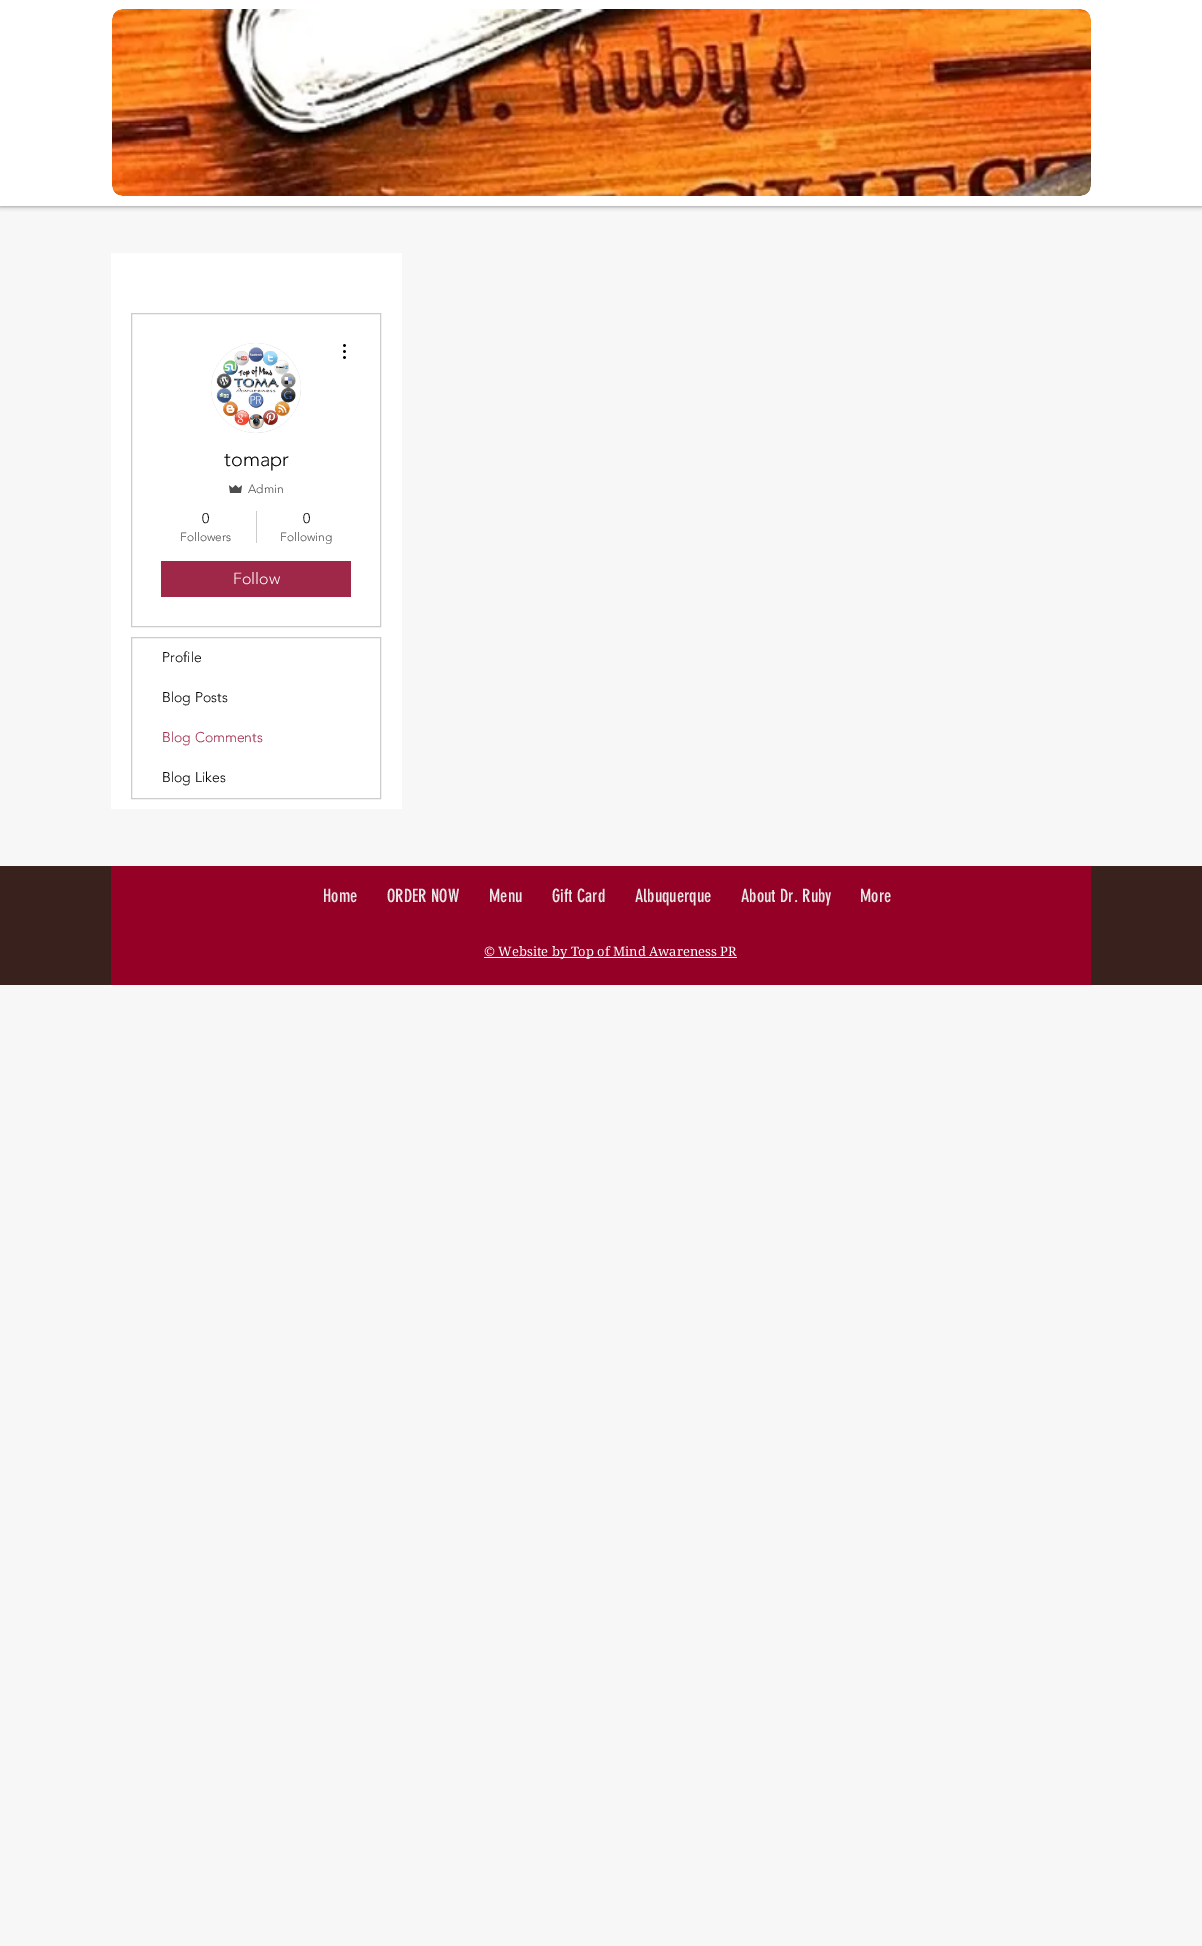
%!PS
<< /PageSize [1202 1946] /PageUsesTransparency true >> setpagedevice
/rgb { 3 { 255 div 3 1 roll } repeat setrgbcolor } def
/font { [ exch dup neg 0 0 3 -1 roll 0 0 ] selectfont } def
/alpha { dup .setfillconstantalpha .setstrokeconstantalpha } def
/circle { newpath 0 360 arc closepath } def
/roundrect { 5 dict begin { /r /h /w /y /x } { exch def } forall
  x r add y moveto x w add y 2 copy h add r arct x w add y h add x 1 index r arct
  x y h add x y r arct x y 2 copy exch w add exch r arct closepath end } def
/shadow { 12 dict begin { /a /b /q /h /w /y /x } { exch def } forall gsave /was 0 def
  9 -2 -9 { dup b mul 4 div /e exch def 1 sub .425 mul 2.718 exch exp 1 add a .99 .min exch div /now exch def
    1 1 now sub 1 was sub div sub alpha /was now def
    w h .min e 2 mul add 0 gt { x e sub y e sub w e 2 mul add h e 2 mul add
      q e add b .6 mul add w h .min 2 div e add .min 0 .max roundrect fill } if } for grestore end } def
/picture { 5 dict begin { /h /w /y /x /name } { exch def } forall
  gsave x y translate w h scale
  w h 8 [w 0 0 h 0 0] name (r) file false 3 colorimage grestore end } def
0 .pushpdf14devicefilter
0 1946 translate 1 -1 scale
4 setmiterlimit
247 247 247 rgb
0 0 1202 1946 rectfill
0 0 0 rgb
0 0 1202 206 0 2.5 0.5 shadow
255 255 255 rgb
0 0 1202 206 rectfill
(img/1.rgb) 112 9 979 187 picture
111 253 291 556 rectfill
204 204 204 rgb
131.5 313.5 249 313 rectstroke
216 216 216 rgb
256 388 45 circle fill
(img/2.rgb) 211 343 90 90 picture
(img/3.rgb) 343 344 3 15 picture
(img/4.rgb) 229 485 13 8 picture
204 204 204 rgb
256 511 1 32 rectfill
159 39 71 rgb
161 561 190 36 rectfill
204 204 204 rgb
131.5 637.5 249 161 rectstroke
[
  [0 866 1202 119 57 34 30]
  [111 866 980 119 149 0 38]
  [484 957 253 1 255 255 255]
] { aload pop rgb rectfill } forall
/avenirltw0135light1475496-Light 20 font
0 0 0 rgb
224 466 moveto (tomapr) show
/avenirltw0135light1475496-Light 12 font
77 77 77 rgb
248 493 moveto (Admin) show
/avenirltw0135light1475496-Light 14 font
0 0 0 rgb
202 523 moveto (0) show
/avenirltw0135light1475496-Light 12 font
77 77 77 rgb
180 541 moveto (Followers) show
/avenirltw0135light1475496-Light 14 font
0 0 0 rgb
303 523 moveto (0) show
/avenirltw0135light1475496-Light 12 font
77 77 77 rgb
280 541 moveto (Following) show
/avenirltw0135light1475496-Light 16 font
255 255 255 rgb
233 584 moveto (Follow) show
/avenirltw0135light1475496-Light 14 font
0 0 0 rgb
162 662 moveto (Profile) show
162 702 moveto (Blog Posts) show
159 39 71 rgb
162 742 moveto (Blog Comments) show
0 0 0 rgb
162 782 moveto (Blog Likes) show
/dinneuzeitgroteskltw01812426-Regular 18 font
232 230 230 rgb
[
  [(Home) 323 902]
  [(ORDER NOW) 387 902]
  [(Menu) 489 902]
  [(Gift Card) 552 902]
  [(Albuquerque) 635 902]
  [(About Dr. Ruby) 741 902]
  [(More) 860 902]
] { aload pop moveto show } forall
/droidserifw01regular-Regular 13 font
255 255 255 rgb
484 956 moveto (© Website by Top of Mind Awareness PR) show
.poppdf14devicefilter showpage
